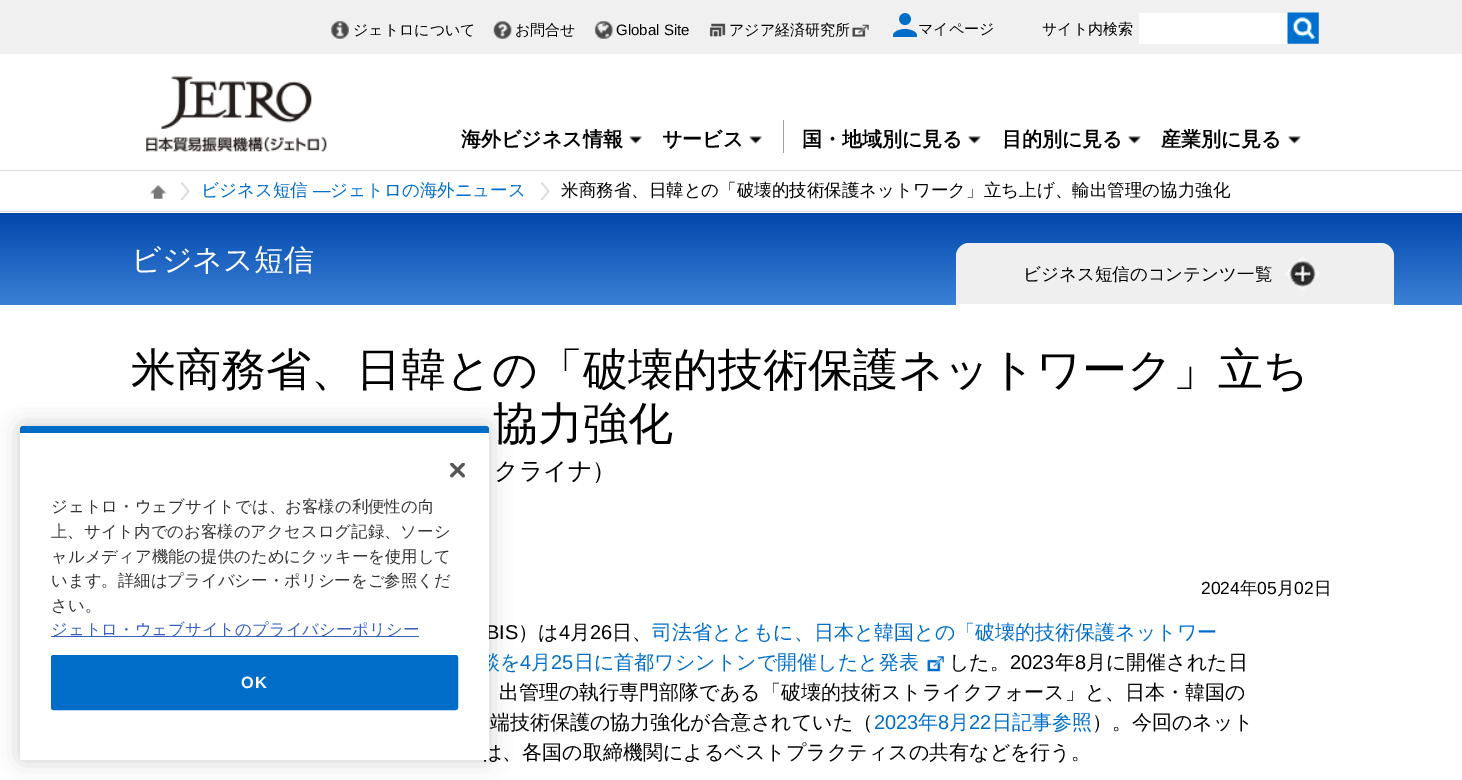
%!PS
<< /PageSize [1462 780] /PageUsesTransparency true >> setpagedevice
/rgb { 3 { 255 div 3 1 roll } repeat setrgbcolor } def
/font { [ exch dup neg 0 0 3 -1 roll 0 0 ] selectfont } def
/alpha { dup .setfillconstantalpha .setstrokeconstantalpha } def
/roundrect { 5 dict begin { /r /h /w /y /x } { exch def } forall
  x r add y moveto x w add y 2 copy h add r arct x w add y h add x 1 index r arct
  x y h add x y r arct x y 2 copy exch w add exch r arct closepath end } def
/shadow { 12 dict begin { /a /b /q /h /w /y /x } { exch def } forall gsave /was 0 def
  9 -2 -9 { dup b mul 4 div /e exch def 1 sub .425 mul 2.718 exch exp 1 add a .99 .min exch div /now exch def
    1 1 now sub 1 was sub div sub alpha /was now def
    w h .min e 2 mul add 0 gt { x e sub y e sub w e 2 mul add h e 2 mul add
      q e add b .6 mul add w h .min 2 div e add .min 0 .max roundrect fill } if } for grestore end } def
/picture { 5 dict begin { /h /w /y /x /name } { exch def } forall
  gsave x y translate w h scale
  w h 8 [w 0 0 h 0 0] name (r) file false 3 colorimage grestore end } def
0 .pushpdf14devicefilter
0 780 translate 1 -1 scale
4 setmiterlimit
255 255 255 rgb
0 0 1462 780 rectfill
240 240 240 rgb
0 0 1462 54 rectfill
(img/1.rgb) 331 21 18 18 picture
(img/2.rgb) 493 21 19 18 picture
(img/3.rgb) 594 21 19 18 picture
(img/4.rgb) 709 23 17 14 picture
(img/5.rgb) 852 24 17 13 picture
(img/6.rgb) 893 13 24 24 picture
255 255 255 rgb
1139 13 150 31 rectfill
(img/7.rgb) 1287 12 32 32 picture
(img/8.rgb) 146 76 181 76 picture
(img/9.rgb) 629 136 14 8 picture
159 159 159 rgb
783 120 1 33 rectfill
(img/9.rgb) 749 136 14 8 picture
(img/10.rgb) 967 136 15 8 picture
(img/10.rgb) 1127 136 15 8 picture
(img/10.rgb) 1287 136 15 8 picture
220 220 220 rgb
0 170 1462 1 rectfill
0 211 1462 1 rectfill
(img/11.rgb) 181 182 8 18 picture
(img/12.rgb) 150 185 17 14 picture
(img/11.rgb) 541 182 8 18 picture
gsave 0 213 moveto 1462 213 lineto 1462 305 lineto 0 305 lineto closepath clip newpath
<< /ShadingType 2 /ColorSpace /DeviceRGB /Coords [731 212 731 305] /Extend [true true] /Function << /FunctionType 2 /Domain [0 1] /C0 [0 0.275 0.667] /C1 [0.231 0.506 0.839] /N 1 >> >> shfill grestore
240 239 240 rgb
969 243 moveto 1381 243 lineto 1388 243 1394 249 1394 256 curveto 1394 305 lineto 956 305 lineto 956 256 lineto 956 249 962 243 969 243 curveto closepath fill
255 255 255 rgb
956 304 438 1 rectfill
(img/13.rgb) 1285 256 35 35 picture
(img/14.rgb) 927 656 17 16 picture
0 0 0 rgb
20 426 469 334 3 11 0.2 shadow
/WenQuanYiZenHei-Medium 15 font
353 35 moveto (ジェトロについて) show
515 35 moveto (お問合せ) show
/LiberationSans-Regular 15 font
616 35 moveto (Global Site) show
/WenQuanYiZenHei-Medium 15 font
[
  [(アジア経済研究所) 729 35]
  [(マイページ) 918 34]
  [(サイト内検索) 1042 34]
] { aload pop moveto show } forall
/WenQuanYiZenHei-Bold 20 font
[
  [(海外ビジネス情報) 461 146]
  [(サービス) 662 146]
  [(国・地域別に見る) 802 146]
  [(目的別に見る) 1002 146]
  [(産業別に見る) 1161 146]
] { aload pop moveto show } forall
/WenQuanYiZenHei-Medium 17.5 font
0 110 200 rgb
201 196 moveto (ビジネス短信) show
/LiberationSans-Regular 17.5 font
313 196 moveto (―) show
/WenQuanYiZenHei-Medium 17.5 font
330 196 moveto (ジェトロの海外ニュース) show
0 0 0 rgb
561 196 moveto (米商務省、日韓との「破壊的技術保護ネットワーク」立ち上げ、輸出管理の協力強化) show
/WenQuanYiZenHei-Medium 30 font
255 255 255 rgb
131 270 moveto (ビジネス短信) show
/WenQuanYiZenHei-Medium 17.5 font
0 0 0 rgb
1023 280 moveto (ビジネス短信のコンテンツ一覧) show
/WenQuanYiZenHei-Medium 45 font
131 385 moveto (米商務省、日韓との「破壊的技術保護ネットワーク」立ち) show
493 439 moveto (協力強化) show
/WenQuanYiZenHei-Medium 24 font
494 479 moveto (クライナ）) show
/LiberationSans-Regular 17.5 font
1201 594 moveto (2024) show
/WenQuanYiZenHei-Medium 17.5 font
1240 594 moveto (年) show
/LiberationSans-Regular 17.5 font
1257 594 moveto (05) show
/WenQuanYiZenHei-Medium 17.5 font
1277 594 moveto (月) show
/LiberationSans-Regular 17.5 font
1294 594 moveto (02) show
/WenQuanYiZenHei-Medium 17.5 font
1314 594 moveto (日) show
/LiberationSans-Regular 20 font
486 639 moveto (BIS) show
/WenQuanYiZenHei-Medium 20 font
518 639 moveto (）は) show
/LiberationSans-Regular 20 font
559 639 moveto (4) show
/WenQuanYiZenHei-Medium 20 font
570 639 moveto (月) show
/LiberationSans-Regular 20 font
590 639 moveto (26) show
/WenQuanYiZenHei-Medium 20 font
612 639 moveto (日、) show
0 110 200 rgb
652 639 moveto (司法省とともに、日本と韓国との「破壊的技術保護ネットワー) show
480 669 moveto (談を) show
/LiberationSans-Regular 20 font
520 669 moveto (4) show
/WenQuanYiZenHei-Medium 20 font
531 669 moveto (月) show
/LiberationSans-Regular 20 font
551 669 moveto (25) show
/WenQuanYiZenHei-Medium 20 font
574 669 moveto (日に首都ワシントンで開催したと発表) show
0 0 0 rgb
949 669 moveto (した。) show
/LiberationSans-Regular 20 font
1010 669 moveto (2023) show
/WenQuanYiZenHei-Medium 20 font
1055 669 moveto (年) show
/LiberationSans-Regular 20 font
1075 669 moveto (8) show
/WenQuanYiZenHei-Medium 20 font
[
  [(月に開催された日) 1086 669]
  [(出管理の執行専門部隊である「破壊的技術ストライクフォース」と、日本・韓国の) 499 699]
  [(端技術保護の協力強化が合意されていた（) 490 729]
] { aload pop moveto show } forall
/LiberationSans-Regular 20 font
0 110 200 rgb
874 729 moveto (2023) show
/WenQuanYiZenHei-Medium 20 font
918 729 moveto (年) show
/LiberationSans-Regular 20 font
938 729 moveto (8) show
/WenQuanYiZenHei-Medium 20 font
949 729 moveto (月) show
/LiberationSans-Regular 20 font
969 729 moveto (22) show
/WenQuanYiZenHei-Medium 20 font
992 729 moveto (日記事参照) show
0 0 0 rgb
1092 729 moveto (）。今回のネット) show
482 759 moveto (は、各国の取締機関によるベストプラクティスの共有などを行う。) show
255 255 255 rgb
20 426 469 334 3 roundrect fill
0 110 200 rgb
23 426 moveto 486 426 lineto 487.5 426 489 427.5 489 429 curveto 489 433 lineto 20 433 lineto 20 429 lineto 20 427.5 21.5 426 23 426 curveto closepath fill
(img/15.rgb) 450 463 15 15 picture
/WenQuanYiZenHei-Medium 16.4 font
51 51 51 rgb
[
  [(ジェトロ・ウェブサイトでは、お客様の利便性の向) 51 512]
  [(上、サイト内でのお客様のアクセスログ記録、ソーシ) 51 537]
  [(ャルメディア機能の提供のためにクッキーを使用して) 51 562]
  [(います。詳細はプライバシー・ポリシーをご参照くだ) 51 586]
  [(さい。) 51 611]
] { aload pop moveto show } forall
56 96 190 rgb
51 636 368 1 rectfill
51 635 moveto (ジェトロ・ウェブサイトのプライバシーポリシー) show
0 110 200 rgb
51.5 655.5 406 54 2 roundrect gsave fill grestore
stroke
/LiberationSans-Bold 16.4 font
255 255 255 rgb
241 688 moveto 1 0 (OK) ashow
.poppdf14devicefilter showpage
